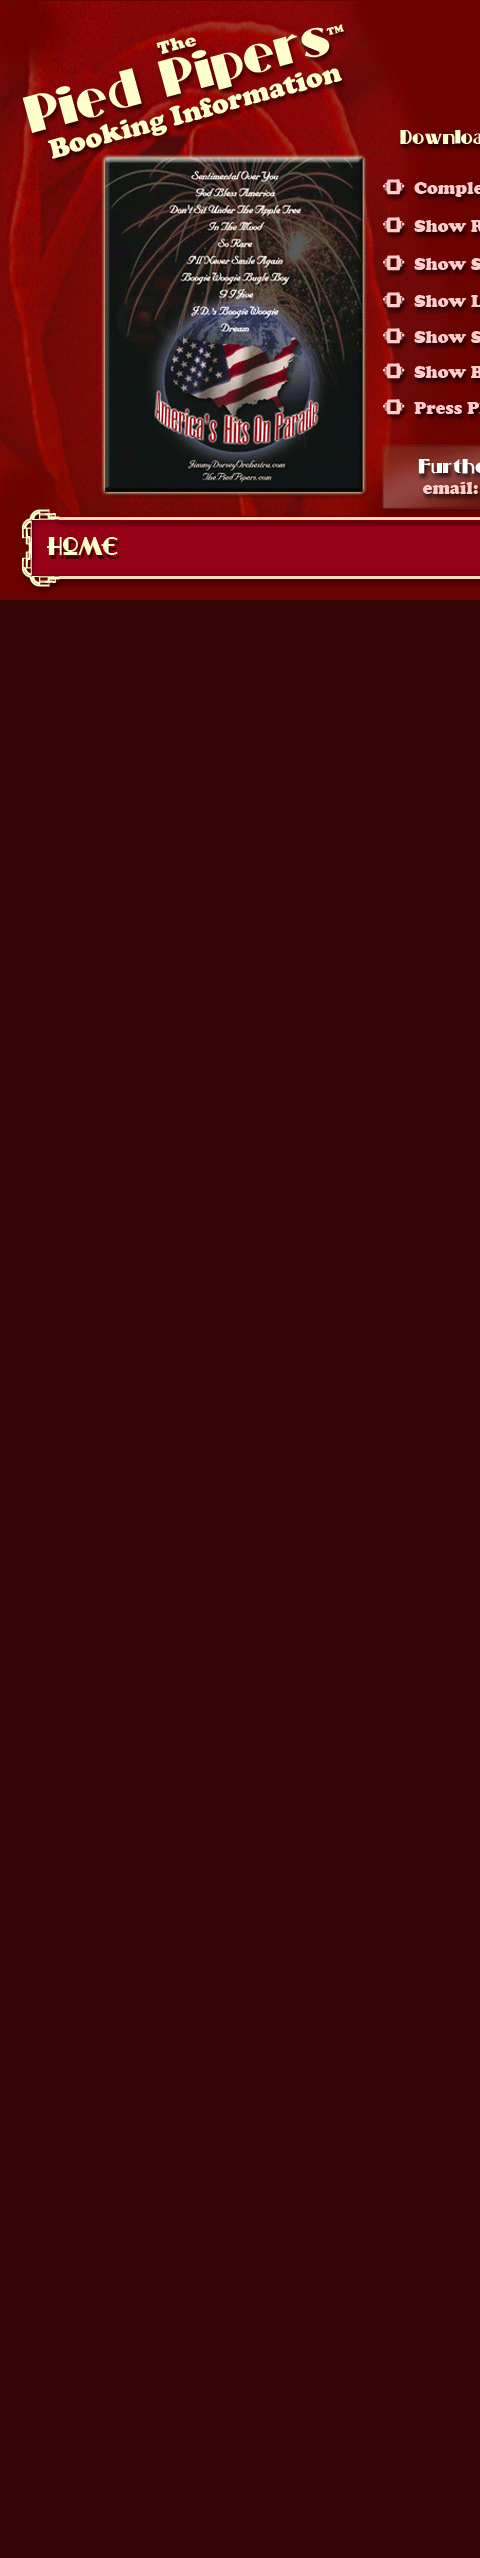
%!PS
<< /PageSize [480 2558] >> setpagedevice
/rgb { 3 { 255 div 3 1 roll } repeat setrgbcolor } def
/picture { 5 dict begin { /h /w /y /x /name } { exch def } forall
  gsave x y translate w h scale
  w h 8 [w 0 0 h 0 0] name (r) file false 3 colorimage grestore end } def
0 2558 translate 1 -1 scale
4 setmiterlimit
53 4 4 rgb
0 0 480 2558 rectfill
(img/1.rgb) 0 0 480 179 picture
(img/2.rgb) 0 179 381 260 picture
(img/3.rgb) 381 179 99 27 picture
(img/4.rgb) 381 206 99 11 picture
(img/5.rgb) 381 217 99 25 picture
(img/6.rgb) 381 242 99 13 picture
(img/7.rgb) 381 255 99 27 picture
(img/8.rgb) 381 282 99 10 picture
(img/9.rgb) 381 292 99 27 picture
(img/10.rgb) 381 319 99 9 picture
(img/11.rgb) 381 328 99 27 picture
(img/12.rgb) 381 355 99 8 picture
(img/13.rgb) 381 363 99 25 picture
(img/14.rgb) 381 388 99 11 picture
(img/15.rgb) 381 399 99 25 picture
(img/16.rgb) 381 424 99 15 picture
(img/17.rgb) 0 439 377 78 picture
(img/18.rgb) 377 439 103 84 picture
(img/19.rgb) 0 517 42 83 picture
(img/20.rgb) 42 517 81 58 picture
(img/21.rgb) 123 517 254 83 picture
(img/22.rgb) 377 523 103 77 picture
(img/23.rgb) 42 575 81 25 picture
showpage
